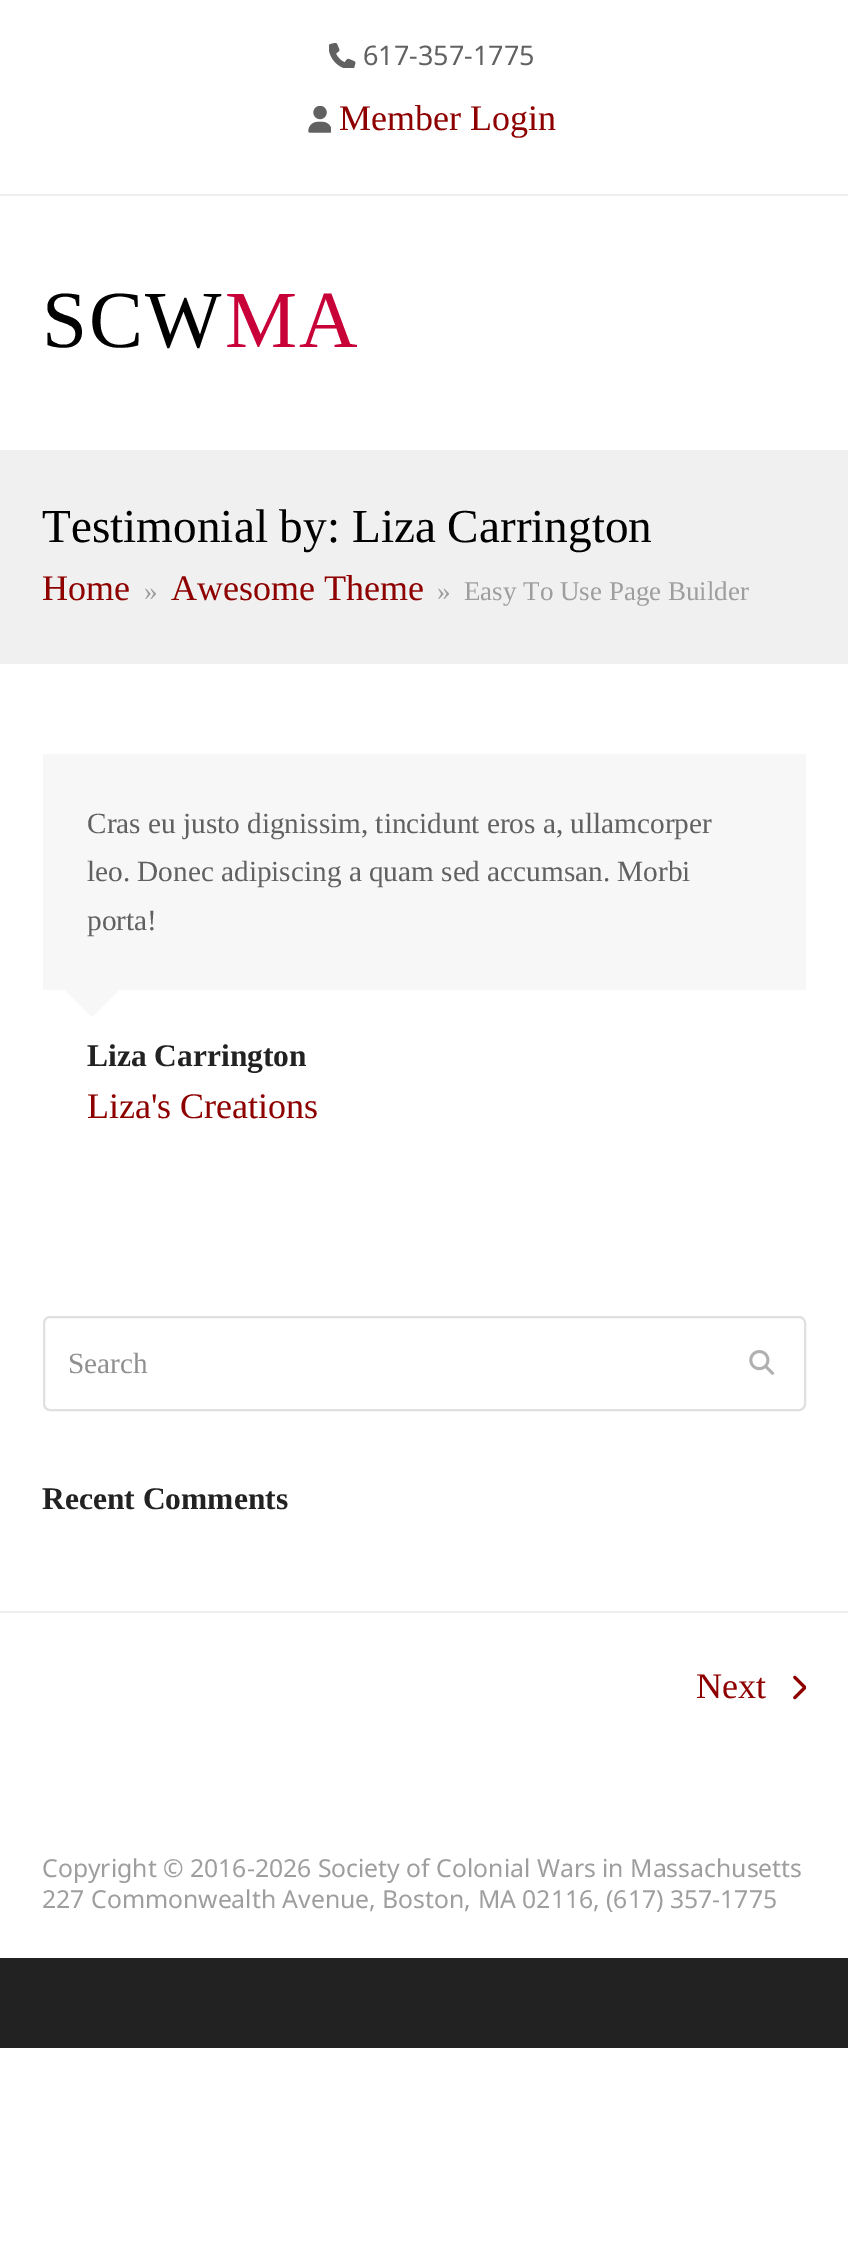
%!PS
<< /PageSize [848 2250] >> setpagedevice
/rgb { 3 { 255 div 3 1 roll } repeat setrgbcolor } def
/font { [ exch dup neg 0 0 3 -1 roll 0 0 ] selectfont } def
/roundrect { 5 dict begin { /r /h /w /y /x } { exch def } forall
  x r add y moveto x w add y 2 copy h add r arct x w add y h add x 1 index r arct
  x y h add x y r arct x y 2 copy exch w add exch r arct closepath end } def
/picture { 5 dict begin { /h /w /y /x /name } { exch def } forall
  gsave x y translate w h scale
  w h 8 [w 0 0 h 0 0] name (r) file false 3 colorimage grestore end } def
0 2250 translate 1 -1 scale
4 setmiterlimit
255 255 255 rgb
0 0 848 2250 rectfill
238 238 238 rgb
0 194 848 2 rectfill
(img/1.rgb) 329 43 27 25 picture
(img/2.rgb) 308 106 23 27 picture
240 240 240 rgb
0 450 848 214 rectfill
247 247 247 rgb
43 754 763 236 rectfill
65 990 moveto 119 990 lineto 92 1017 lineto closepath fill
224 224 224 rgb
2 setlinewidth
44 1317 761 93 6 roundrect stroke
(img/3.rgb) 749 1350 25 25 picture
238 238 238 rgb
0 1611 848 2 rectfill
(img/4.rgb) 793 1675 13 25 picture
34 34 34 rgb
0 1958 848 90 rectfill
/NotoSans-Regular 27 font
97 97 97 rgb
363 65 moveto (617-357-1775) show
/LiberationSerif-Regular 36 font
142 0 0 rgb
339 130 moveto (Member Login) show
/LiberationSerif-Regular 81 font
0 0 0 rgb
42 347 moveto 2 0 (SCW) ashow
200 1 56 rgb
225 347 moveto 2 0 (MA) ashow
/LiberationSerif-Regular 47.25 font
0 0 0 rgb
42 542 moveto (Testimonial by: Liza Carrington) show
/LiberationSerif-Regular 36 font
142 0 0 rgb
42 600 moveto (Home) show
/LiberationSerif-Regular 27 font
158 158 158 rgb
144 600 moveto (») show
/LiberationSerif-Regular 36 font
142 0 0 rgb
171 600 moveto (Awesome Theme) show
/LiberationSerif-Regular 27 font
158 158 158 rgb
437 600 moveto (») show
464 600 moveto (Easy To Use Page Builder) show
/LiberationSerif-Regular 29.25 font
97 97 97 rgb
[
  [(Cras eu justo dignissim, tincidunt eros a, ullamcorper) 87 833]
  [(leo. Donec adipiscing a quam sed accumsan. Morbi) 87 881]
  [(porta!) 87 930]
] { aload pop moveto show } forall
/LiberationSerif-Bold 31.5 font
34 34 34 rgb
87 1066 moveto (Liza Carrington) show
/LiberationSerif-Regular 36 font
142 0 0 rgb
87 1118 moveto (Liza's Creations) show
/LiberationSerif-Regular 29.25 font
144 144 144 rgb
68 1373 moveto (Search) show
/LiberationSerif-Bold 31.5 font
34 34 34 rgb
42 1509 moveto (Recent Comments) show
/LiberationSerif-Regular 36 font
142 0 0 rgb
696 1698 moveto (Next) show
/NotoSans-Regular 24.75 font
158 158 158 rgb
42 1877 moveto (Copyright © 2016-2026 Society of Colonial Wars in Massachusetts) show
42 1908 moveto (227 Commonwealth Avenue, Boston, MA 02116, \(617\) 357-1775) show
showpage
